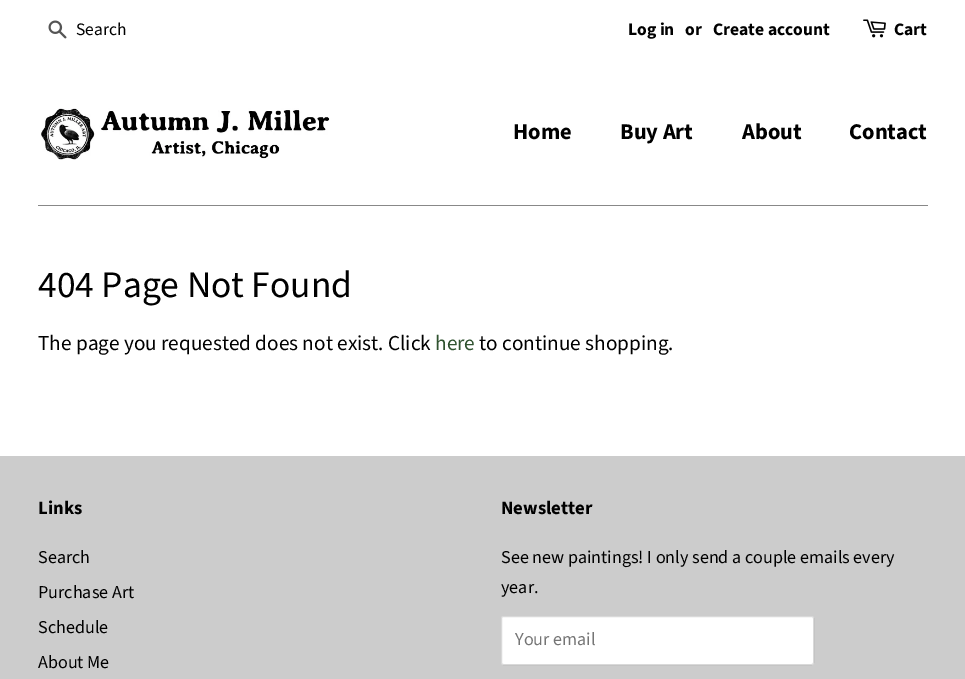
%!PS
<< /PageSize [965 679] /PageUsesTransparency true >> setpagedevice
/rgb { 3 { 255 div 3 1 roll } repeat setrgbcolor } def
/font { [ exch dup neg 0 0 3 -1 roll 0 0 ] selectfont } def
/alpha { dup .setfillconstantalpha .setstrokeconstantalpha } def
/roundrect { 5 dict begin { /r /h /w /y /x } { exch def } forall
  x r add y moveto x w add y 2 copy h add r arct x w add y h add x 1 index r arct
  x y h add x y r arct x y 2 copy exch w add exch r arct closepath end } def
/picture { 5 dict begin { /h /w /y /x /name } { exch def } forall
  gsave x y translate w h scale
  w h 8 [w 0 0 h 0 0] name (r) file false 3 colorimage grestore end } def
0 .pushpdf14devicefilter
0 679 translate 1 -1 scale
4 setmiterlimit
255 255 255 rgb
0 0 965 679 rectfill
(img/1.rgb) 48 20 19 19 picture
(img/2.rgb) 863 19 23 19 picture
136 136 136 rgb
38 205 890 1 rectfill
(img/3.rgb) 41 108 289 52 picture
204 204 204 rgb
0 456 965 223 rectfill
255 255 255 rgb
501 616 313 49 2.5 roundrect fill
0.15 alpha
0 0 0 rgb
501.5 616.5 312 48 2 roundrect stroke
/SourceSansPro-Regular 17.5 font
1 alpha
76 35 moveto (Search) show
/SourceSansPro-Bold 17.5 font
[
  [(Log in) 628 35]
  [(or) 685 35]
  [(Create account) 713 35]
  [(Cart) 894 35]
] { aload pop moveto show } forall
/SourceSansPro-Bold 22.5 font
[
  [(Home) 513 139]
  [(Buy Art) 620 139]
  [(About) 742 139]
  [(Contact) 849 139]
] { aload pop moveto show } forall
/SourceSansPro-Regular 37.5 font
38 297 moveto (404 Page Not Found) show
/SourceSansPro-Regular 21.25 font
38 350 moveto (The page you requested does not exist. Click) show
48 83 48 rgb
435 350 moveto (here) show
0 0 0 rgb
479 350 moveto (to continue shopping.) show
/SourceSansPro-Bold 18.75 font
38 514 moveto (Links) show
/SourceSansPro-Regular 18.1 font
[
  [(Search) 38 563]
  [(Purchase Art) 38 598]
  [(Schedule) 38 633]
  [(About Me) 38 668]
] { aload pop moveto show } forall
/SourceSansPro-Bold 18.75 font
501 514 moveto (Newsletter) show
/SourceSansPro-Regular 18.1 font
501 563 moveto (See new paintings! I only send a couple emails every) show
501 593 moveto (year.) show
117 117 117 rgb
515 645 moveto (Your email) show
.poppdf14devicefilter showpage
